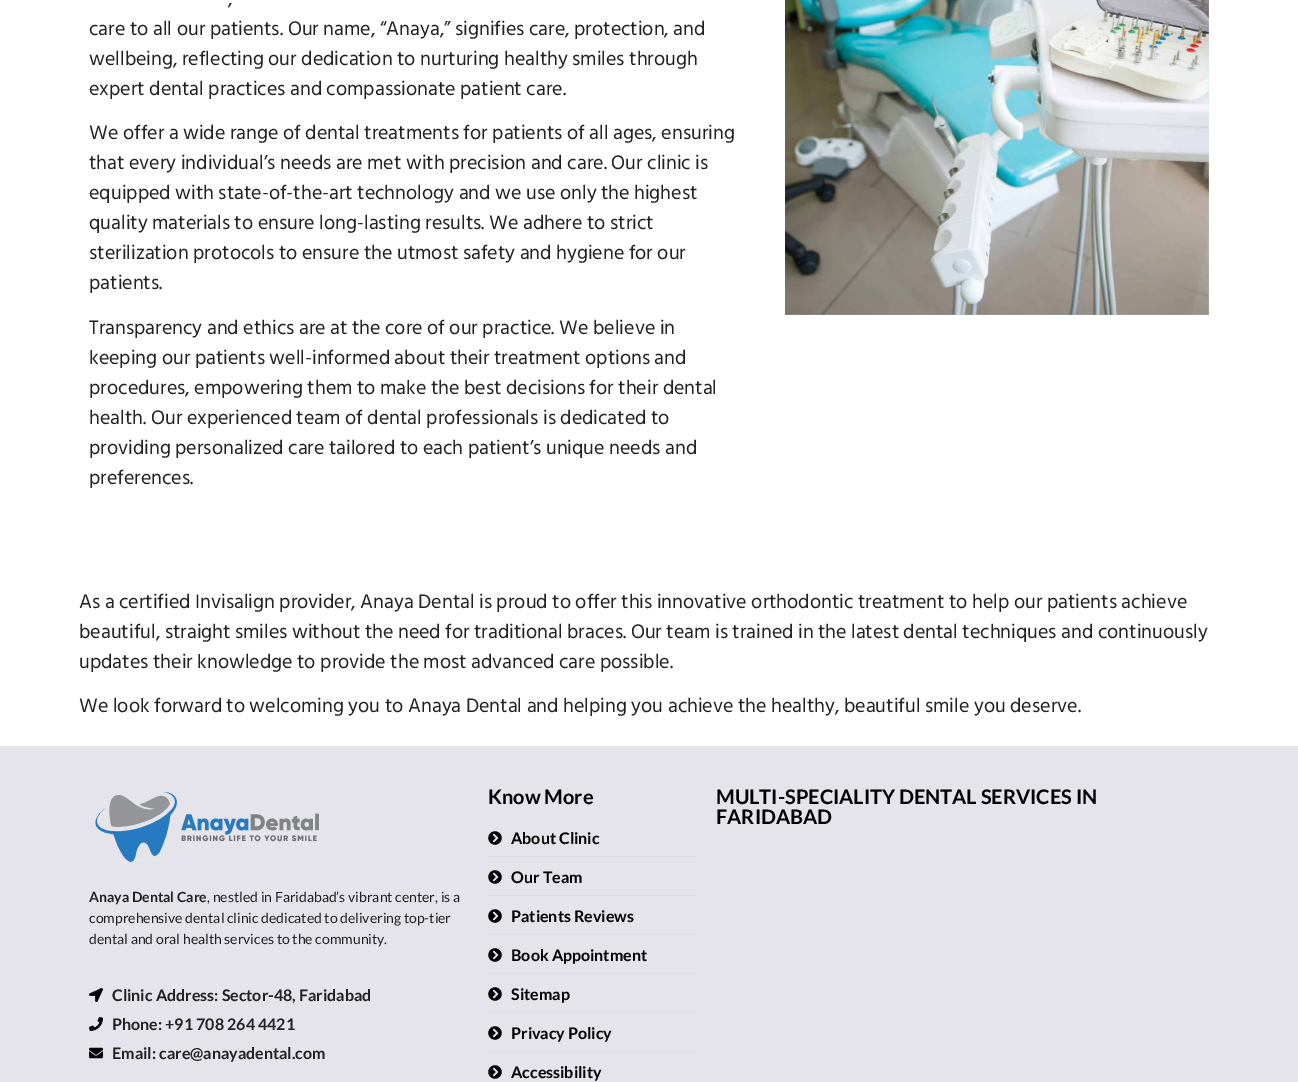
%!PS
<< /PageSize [1298 1082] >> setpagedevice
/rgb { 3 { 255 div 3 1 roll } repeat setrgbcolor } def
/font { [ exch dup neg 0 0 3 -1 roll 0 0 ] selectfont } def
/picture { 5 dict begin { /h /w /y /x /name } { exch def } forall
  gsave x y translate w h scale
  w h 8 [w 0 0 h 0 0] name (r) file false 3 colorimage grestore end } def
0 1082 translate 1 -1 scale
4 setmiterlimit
255 255 255 rgb
0 0 1298 1082 rectfill
(img/1.rgb) 785 0 424 315 picture
228 228 234 rgb
0 746 1298 336 rectfill
(img/2.rgb) 488 831 14 14 picture
221 221 221 rgb
488 856 208 1 rectfill
(img/2.rgb) 488 870 14 14 picture
488 895 208 1 rectfill
(img/2.rgb) 488 909 14 14 picture
488 934 208 1 rectfill
(img/2.rgb) 488 948 14 14 picture
488 973 208 1 rectfill
(img/2.rgb) 488 987 14 14 picture
488 1012 208 1 rectfill
(img/2.rgb) 488 1026 14 14 picture
488 1051 208 1 rectfill
(img/2.rgb) 488 1065 14 14 picture
(img/3.rgb) 95 792 224 70 picture
(img/4.rgb) 89 988 14 14 picture
(img/5.rgb) 89 1017 14 14 picture
(img/6.rgb) 89 1047 14 12 picture
/HindSiliguri-Regular 20 font
34 34 34 rgb
[
  [(,) 228 5]
  [(care to all our patients. Our name, “Anaya,” signifies care, protection, and) 89 35]
  [(wellbeing, reflecting our dedication to nurturing healthy smiles through) 89 65]
  [(expert dental practices and compassionate patient care.) 89 95]
  [(We offer a wide range of dental treatments for patients of all ages, ensuring) 89 139]
  [(that every individual’s needs are met with precision and care. Our clinic is) 89 169]
  [(equipped with state-of-the-art technology and we use only the highest) 89 199]
  [(quality materials to ensure long-lasting results. We adhere to strict) 89 229]
  [(sterilization protocols to ensure the utmost safety and hygiene for our) 89 259]
  [(patients.) 89 289]
  [(Transparency and ethics are at the core of our practice. We believe in) 89 334]
  [(keeping our patients well-informed about their treatment options and) 89 364]
  [(procedures, empowering them to make the best decisions for their dental) 89 394]
  [(health. Our experienced team of dental professionals is dedicated to) 89 424]
  [(providing personalized care tailored to each patient’s unique needs and) 89 454]
  [(preferences.) 89 484]
  [(As a certified Invisalign provider, Anaya Dental is proud to offer this innovative orthodontic treatment to help our patients achieve) 79 608]
  [(beautiful, straight smiles without the need for traditional braces. Our team is trained in the latest dental techniques and continuously) 79 638]
  [(updates their knowledge to provide the most advanced care possible.) 79 668]
  [(We look forward to welcoming you to Anaya Dental and helping you achieve the healthy, beautiful smile you deserve.) 79 712]
] { aload pop moveto show } forall
/Lato-Bold 20 font
0 0 0 rgb
488 804 moveto (Know More) show
/Lato-Bold 16 font
[
  [(About Clinic) 511 844]
  [(Our Team) 511 883]
  [(Patients Reviews) 511 922]
  [(Book Appointment) 511 961]
  [(Sitemap) 511 1000]
  [(Privacy Policy) 511 1039]
  [(Accessibility) 511 1078]
] { aload pop moveto show } forall
/Lato-Bold 20 font
716 804 moveto (MULTI-SPECIALITY DENTAL SERVICES IN) show
716 824 moveto (FARIDABAD) show
/Lato-Bold 14 font
34 34 34 rgb
89 902 moveto (Anaya Dental Care) show
/Lato-Regular 14 font
[
  [(, nestled in Faridabad’s vibrant center, is a) 207 902]
  [(comprehensive dental clinic dedicated to delivering top-tier) 89 923]
  [(dental and oral health services to the community.) 89 944]
] { aload pop moveto show } forall
/Lato-Bold 16 font
[
  [(Clinic Address: Sector-48, Faridabad) 112 1001]
  [(Phone: +91 708 264 4421) 112 1030]
  [(Email: care@anayadental.com) 112 1059]
] { aload pop moveto show } forall
showpage
